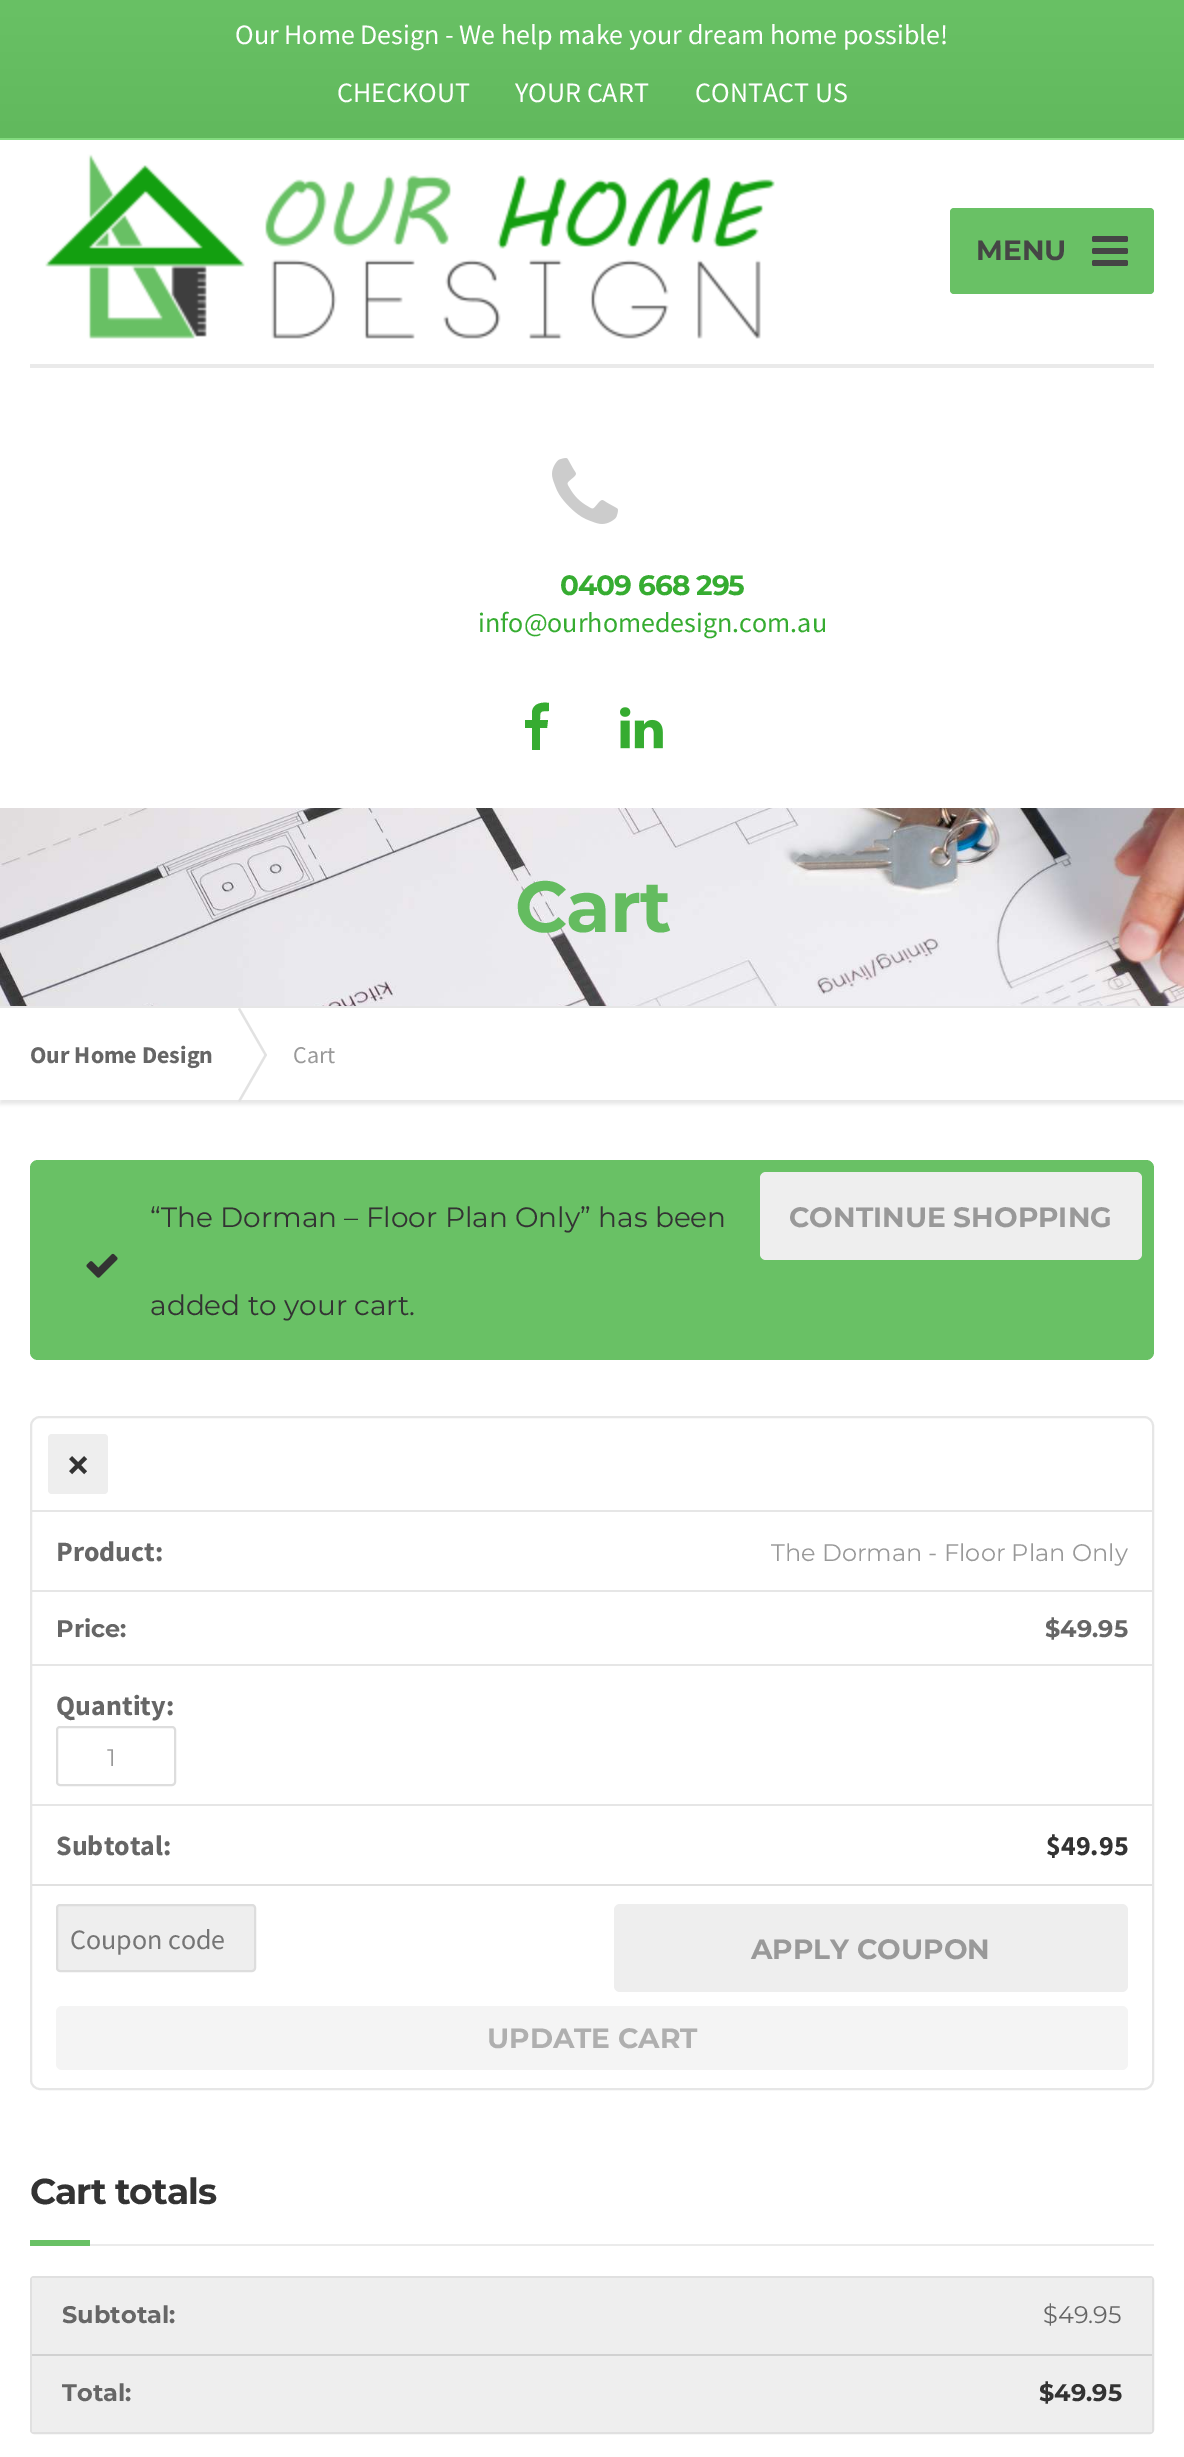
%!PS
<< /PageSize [1184 2457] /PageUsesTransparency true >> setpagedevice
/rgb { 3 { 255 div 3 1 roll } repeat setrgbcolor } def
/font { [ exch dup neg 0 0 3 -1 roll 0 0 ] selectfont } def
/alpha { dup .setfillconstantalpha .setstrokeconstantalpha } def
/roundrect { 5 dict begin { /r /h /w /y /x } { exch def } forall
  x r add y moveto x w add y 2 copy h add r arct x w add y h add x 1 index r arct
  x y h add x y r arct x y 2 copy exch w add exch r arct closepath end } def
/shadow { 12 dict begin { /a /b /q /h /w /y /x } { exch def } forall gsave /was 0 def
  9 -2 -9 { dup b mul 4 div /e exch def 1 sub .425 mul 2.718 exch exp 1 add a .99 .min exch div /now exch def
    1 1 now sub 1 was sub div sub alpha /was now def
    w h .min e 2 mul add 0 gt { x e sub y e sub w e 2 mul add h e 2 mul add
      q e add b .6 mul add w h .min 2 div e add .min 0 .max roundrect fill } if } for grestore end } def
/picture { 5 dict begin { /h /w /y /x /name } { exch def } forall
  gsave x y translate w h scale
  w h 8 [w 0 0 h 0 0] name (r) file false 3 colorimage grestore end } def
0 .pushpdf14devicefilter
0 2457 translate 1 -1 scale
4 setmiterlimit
255 255 255 rgb
0 0 1184 2457 rectfill
gsave 0 0 moveto 1184 0 lineto 1184 138 lineto 0 138 lineto closepath clip newpath
<< /ShadingType 2 /ColorSpace /DeviceRGB /Coords [592 0 592 138] /Extend [true true] /Function << /FunctionType 2 /Domain [0 1] /C0 [0.412 0.757 0.396] /C1 [0.38 0.725 0.365] /N 1 >> >> shfill grestore
131 219 127 rgb
0 138 1184 2 rectfill
(img/1.rgb) 45 154 730 185 picture
105 193 101 rgb
950 208 204 86 4 roundrect fill
69 69 69 rgb
1092 236 36 6 2 roundrect fill
1092 248 36 6 2 roundrect fill
1092 260 36 6 2 roundrect fill
234 234 234 rgb
30 364 1124 4 rectfill
(img/2.rgb) 552 458 66 66 picture
54 172 49 rgb
549 703 moveto 549 711 lineto 540 711 540 711 540 720 curveto 548 720 lineto 547 728 lineto 540 728 lineto 540 750 lineto 532 750 lineto 532 728 lineto 525 728 lineto 525 720 lineto 532 720 lineto 532 712 lineto 533 703 542 702 549 703 curveto closepath fill
(img/3.rgb) 620 707 43 42 picture
(img/4.rgb) 0 808 1184 198 picture
230 230 230 rgb
0 1006 1184 2 rectfill
gsave
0 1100 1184 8 rectclip
0 1012 1184 92 0 2 1 shadow
grestore
226 226 226 rgb
238 1009 moveto 240 1008 lineto 267 1055 lineto 265 1056 lineto closepath fill
265 1054 moveto 267 1055 lineto 240 1102 lineto 238 1101 lineto closepath fill
105 193 101 rgb
30 1160 1124 200 8 roundrect fill
238 238 238 rgb
760 1172 382 88 6 roundrect fill
(img/5.rgb) 86 1253 32 25 picture
230 230 230 rgb
2 setlinewidth
31 1417 1122 672 9 roundrect stroke
238 238 238 rgb
48 1434 60 60 4 roundrect fill
[
  [32 1510 1120 2 230 230 230]
  [32 1590 1120 2 230 230 230]
  [32 1664 1120 2 230 230 230]
] { aload pop rgb rectfill } forall
221 221 221 rgb
57 1727 118 58 3 roundrect stroke
230 230 230 rgb
32 1804 1120 2 rectfill
225 225 225 rgb
32 1884 1120 2 rectfill
238 238 238 rgb
57 1905 198 66 3 roundrect gsave fill grestore
221 221 221 rgb
stroke
238 238 238 rgb
614 1904 514 88 6 roundrect fill
244 244 244 rgb
56 2006 1072 64 6 roundrect fill
235 235 235 rgb
90 2244 1064 2 rectfill
105 193 101 rgb
30 2240 60 6 rectfill
224 224 224 rgb
31 2277 1122 156 3 roundrect stroke
[
  [32 2278 1120 76 238 238 238]
  [32 2356 1120 76 238 238 238]
  [32 2354 1120 2 209 209 209]
] { aload pop rgb rectfill } forall
/SourceSansPro-Regular 28 font
255 255 255 rgb
[
  [(Our Home Design - We help make your dream home possible!) 235 44]
  [(CHECKOUT) 337 102]
  [(YOUR CART) 515 102]
  [(CONTACT US) 695 102]
] { aload pop moveto show } forall
/Montserrat-Bold 28 font
69 69 69 rgb
976 260 moveto (MENU) show
54 172 49 rgb
560 595 moveto -1 0 (0409 668 295) ashow
/SourceSansPro-Regular 28 font
478 632 moveto (info@ourhomedesign.com.au) show
/Montserrat-Bold 72 font
100 188 96 rgb
515 932 moveto -1 0 (Cart) ashow
/SourceSansPro-Bold 24 font
102 102 102 rgb
30 1063 moveto (Our Home Design) show
/SourceSansPro-Regular 24 font
153 153 153 rgb
293 1063 moveto (Cart) show
/Montserrat-Regular 28 font
51 51 51 rgb
150 1227 moveto (“The Dorman – Floor Plan Only” has been) show
/Montserrat-Bold 28 font
153 153 153 rgb
789 1227 moveto (CONTINUE SHOPPING) show
/Montserrat-Regular 28 font
51 51 51 rgb
150 1315 moveto (added to your cart.) show
/SourceSansPro-Bold 42 font
67 1479 moveto (×) show
/SourceSansPro-Bold 28 font
102 102 102 rgb
56 1561 moveto (Product:) show
/Montserrat-Regular 24 font
153 153 153 rgb
771 1561 moveto (The Dorman - Floor Plan Only) show
/Montserrat-Bold 24 font
102 102 102 rgb
56 1637 moveto (Price:) show
1045 1637 moveto ($49.95) show
/SourceSansPro-Bold 28 font
56 1715 moveto (Quantity:) show
/Montserrat-Regular 24 font
153 153 153 rgb
107 1766 moveto (1) show
/SourceSansPro-Bold 28 font
102 102 102 rgb
56 1855 moveto (Subtotal:) show
51 51 51 rgb
1046 1855 moveto ($49.95) show
/SourceSansPro-Regular 28 font
117 117 117 rgb
70 1949 moveto (Coupon code) show
/Montserrat-Bold 28 font
153 153 153 rgb
751 1959 moveto (APPLY COUPON) show
175 175 175 rgb
487 2048 moveto (UPDATE CART) show
/Montserrat-Bold 36 font
51 51 51 rgb
30 2204 moveto -1 0 (Cart totals) ashow
/Montserrat-Bold 24 font
102 102 102 rgb
62 2323 moveto (Subtotal:) show
/Montserrat-Regular 24 font
1043 2323 moveto ($49.95) show
/Montserrat-Bold 24 font
62 2401 moveto (Total:) show
51 51 51 rgb
1039 2401 moveto ($49.95) show
.poppdf14devicefilter showpage
